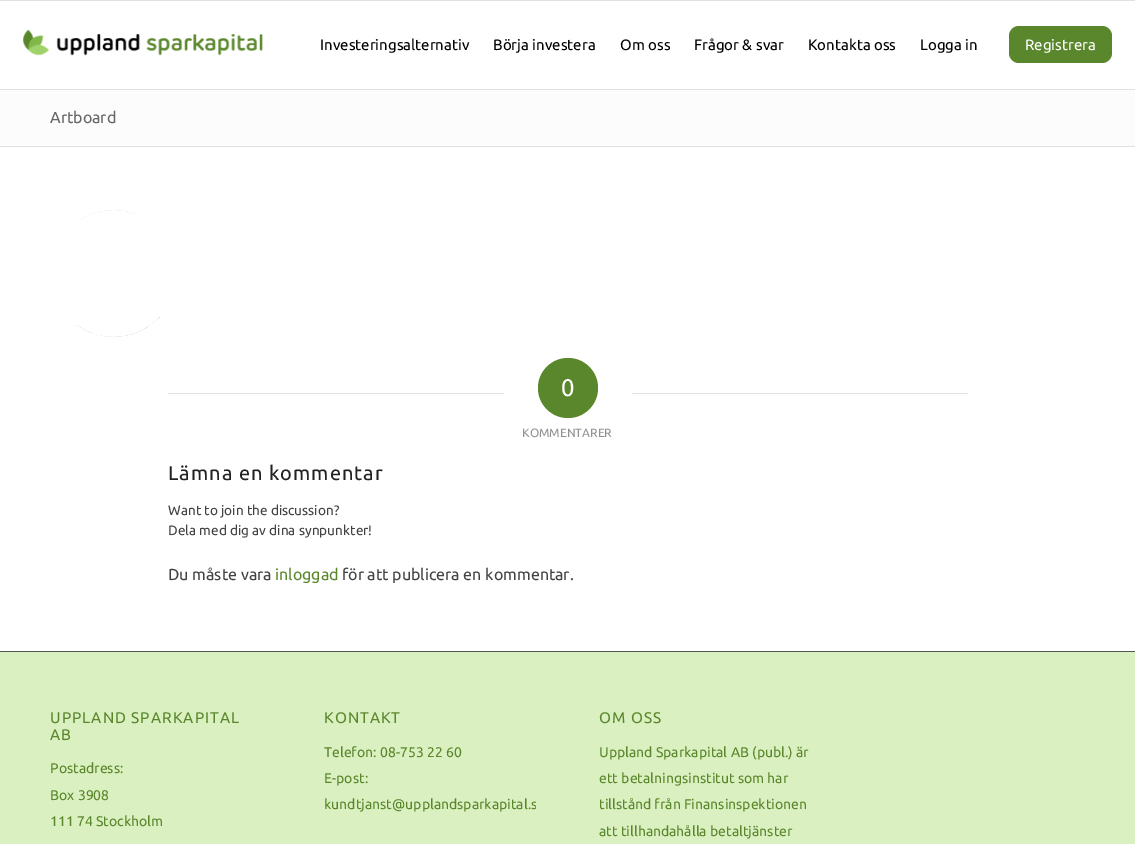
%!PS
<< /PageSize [1135 844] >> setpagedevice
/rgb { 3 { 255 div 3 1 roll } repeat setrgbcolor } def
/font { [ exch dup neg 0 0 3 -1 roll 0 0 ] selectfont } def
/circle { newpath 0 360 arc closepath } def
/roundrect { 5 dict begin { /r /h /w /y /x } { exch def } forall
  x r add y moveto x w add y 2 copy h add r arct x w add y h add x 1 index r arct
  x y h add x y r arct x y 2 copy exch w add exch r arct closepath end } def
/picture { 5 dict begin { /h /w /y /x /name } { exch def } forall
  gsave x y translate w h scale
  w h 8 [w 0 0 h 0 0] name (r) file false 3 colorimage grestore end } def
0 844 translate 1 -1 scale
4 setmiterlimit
255 255 255 rgb
0 0 1135 844 rectfill
225 225 225 rgb
0 0 1135 1 rectfill
0 89 1135 1 rectfill
(img/1.rgb) 23 29 240 27 picture
91 135 44 rgb
1009 26 103 37 10 roundrect fill
252 252 252 rgb
0 90 1135 56 rectfill
225 225 225 rgb
0 146 1135 1 rectfill
(img/2.rgb) 77 210 83 127 picture
168 393 336 1 rectfill
91 135 44 rgb
568 388 30 circle fill
[
  [632 393 336 1 225 225 225]
  [0 652 1135 192 218 240 192]
  [0 651 1135 1 85 85 85]
] { aload pop rgb rectfill } forall
/Ubuntu-Regular 15 font
0 0 0 rgb
[
  [(Investeringsalternativ) 320 50]
  [(Börja investera) 493 50]
  [(Om oss) 620 50]
  [(Frågor & svar) 694 50]
  [(Kontakta oss) 808 50]
  [(Logga in) 920 50]
] { aload pop moveto show } forall
255 255 255 rgb
1025 50 moveto (Registrera) show
/Ubuntu-Regular 16 font
102 102 102 rgb
50 123 moveto (Artboard) show
/Ubuntu-Regular 24 font
255 255 255 rgb
561 396 moveto (0) show
/Ubuntu-Regular 12 font
145 145 145 rgb
522 437 moveto (KOMMENTARER) show
/Ubuntu-Regular 20 font
34 34 34 rgb
168 480 moveto 1 0 (Lämna en kommentar) ashow
/Ubuntu-Regular 13.6 font
66 66 66 rgb
168 515 moveto (Want to join the discussion?) show
168 535 moveto (Dela med dig av dina synpunkter!) show
/Ubuntu-Regular 16 font
168 580 moveto (Du måste vara) show
91 135 44 rgb
275 580 moveto (inloggad) show
66 66 66 rgb
342 580 moveto (för att publicera en kommentar.) show
/Ubuntu-Regular 15.4 font
91 135 44 rgb
50 723 moveto 1 0 (UPPLAND SPARKAPITAL) ashow
50 740 moveto 1 0 (AB) ashow
/Ubuntu-Regular 14 font
[
  [(Postadress:) 50 773]
  [(Box 3908) 50 800]
  [(111 74 Stockholm) 50 826]
] { aload pop moveto show } forall
/Ubuntu-Regular 15.4 font
324 723 moveto 1 0 (KONTAKT) ashow
/Ubuntu-Regular 14 font
324 757 moveto (Telefon: 08-753 22 60) show
324 783 moveto (E-post:) show
gsave
324 697 212 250 rectclip
324 809 moveto (kundtjanst@upplandsparkapital.s) show
grestore
/Ubuntu-Regular 15.4 font
599 723 moveto 1 0 (OM OSS) ashow
/Ubuntu-Regular 14 font
[
  [(Uppland Sparkapital AB \(publ.\) är) 599 757]
  [(ett betalningsinstitut som har) 599 783]
  [(tillstånd från Finansinspektionen) 599 809]
  [(att tillhandahålla betaltjänster) 599 836]
] { aload pop moveto show } forall
showpage
